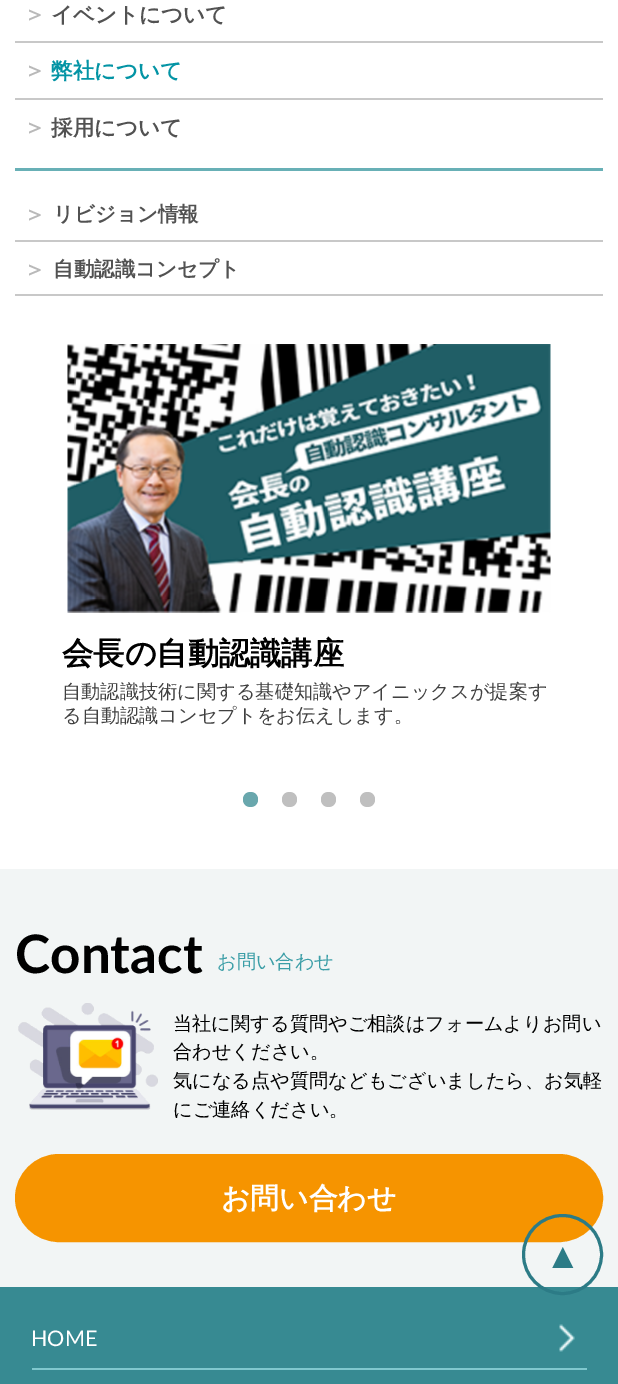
%!PS
<< /PageSize [618 1384] >> setpagedevice
/rgb { 3 { 255 div 3 1 roll } repeat setrgbcolor } def
/font { [ exch dup neg 0 0 3 -1 roll 0 0 ] selectfont } def
/circle { newpath 0 360 arc closepath } def
/roundrect { 5 dict begin { /r /h /w /y /x } { exch def } forall
  x r add y moveto x w add y 2 copy h add r arct x w add y h add x 1 index r arct
  x y h add x y r arct x y 2 copy exch w add exch r arct closepath end } def
/picture { 5 dict begin { /h /w /y /x /name } { exch def } forall
  gsave x y translate w h scale
  w h 8 [w 0 0 h 0 0] name (r) file false 3 colorimage grestore end } def
0 1384 translate 1 -1 scale
4 setmiterlimit
255 255 255 rgb
0 0 618 1384 rectfill
[
  [15 41 588 2 200 200 200]
  [15 98 588 2 200 200 200]
  [15 168 588 3 104 176 182]
  [15 240 588 2 200 200 200]
  [15 294 588 2 200 200 200]
] { aload pop rgb rectfill } forall
(img/1.rgb) 67 344 484 269 picture
105 167 173 rgb
258 799.5 moveto 258 789.5 243 789.5 243 799.5 curveto 243 809.5 258 809.5 258 799.5 curveto closepath fill
191 191 191 rgb
297 799.5 moveto 297 789.5 282 789.5 282 799.5 curveto 282 809.5 297 809.5 297 799.5 curveto closepath 336 799.5 moveto 336 789.5 321 789.5 321 799.5 curveto 321 809.5 336 809.5 336 799.5 curveto closepath fill
375 799.5 moveto 375 789.5 360 789.5 360 799.5 curveto 360 809.5 375 809.5 375 799.5 curveto closepath fill
242 245 245 rgb
0 869 618 418 rectfill
(img/2.rgb) 18 1003 140 107 picture
246 148 0 rgb
16 1155 586 86 43 roundrect gsave fill grestore
2 setlinewidth
stroke
55 138 146 rgb
0 1287 618 97 rectfill
44 123 134 rgb
3 setlinewidth
562.5 1254.5 39 circle stroke
128 200 206 rgb
32 1368 555 2 rectfill
(img/3.rgb) 559 1324 16 28 picture
/WenQuanYiZenHei-Bold 23 font
185 185 185 rgb
23 22 moveto (＞) show
/WenQuanYiZenHei-Bold 21.5 font
82 82 82 rgb
51 22 moveto (イベントについて) show
/WenQuanYiZenHei-Bold 23 font
185 185 185 rgb
23 78 moveto (＞) show
/WenQuanYiZenHei-Bold 21.5 font
3 148 165 rgb
51 78 moveto (弊社について) show
/WenQuanYiZenHei-Bold 23 font
185 185 185 rgb
23 135 moveto (＞) show
/WenQuanYiZenHei-Bold 21.5 font
82 82 82 rgb
51 135 moveto (採用について) show
/WenQuanYiZenHei-Bold 23 font
185 185 185 rgb
23 222 moveto (＞) show
/WenQuanYiZenHei-Bold 20.5 font
82 82 82 rgb
53 221 moveto (リビジョン情報) show
/WenQuanYiZenHei-Bold 23 font
185 185 185 rgb
23 277 moveto (＞) show
/WenQuanYiZenHei-Bold 20.5 font
82 82 82 rgb
53 276 moveto (自動認識コンセプト) show
/WenQuanYiZenHei-Bold 31.25 font
0 0 0 rgb
62 664 moveto (会長の自動認識講座) show
/WenQuanYiZenHei-Medium 19.2 font
64 64 64 rgb
62 698 moveto (自動認識技術に関する基礎知識やアイニックスが提案す) show
62 722 moveto (る自動認識コンセプトをお伝えします。) show
/Lato-Bold 53 font
0 0 0 rgb
15 973 moveto (Contact) show
/WenQuanYiZenHei-Medium 19.2 font
59 158 167 rgb
217 968 moveto (お問い合わせ) show
0 0 0 rgb
[
  [(当社に関する質問やご相談はフォームよりお問い) 173 1030]
  [(合わせください。) 173 1058]
  [(気になる点や質問などもございましたら、お気軽) 173 1087]
  [(にご連絡ください。) 173 1116]
] { aload pop moveto show } forall
/WenQuanYiZenHei-Bold 28.75 font
255 255 255 rgb
221 1208 moveto (お問い合わせ) show
/LiberationSans-Regular 36 font
44 123 134 rgb
545 1268 moveto (▲) show
/Lato-Regular 21.5 font
255 255 255 rgb
31 1346 moveto (HOME) show
showpage
